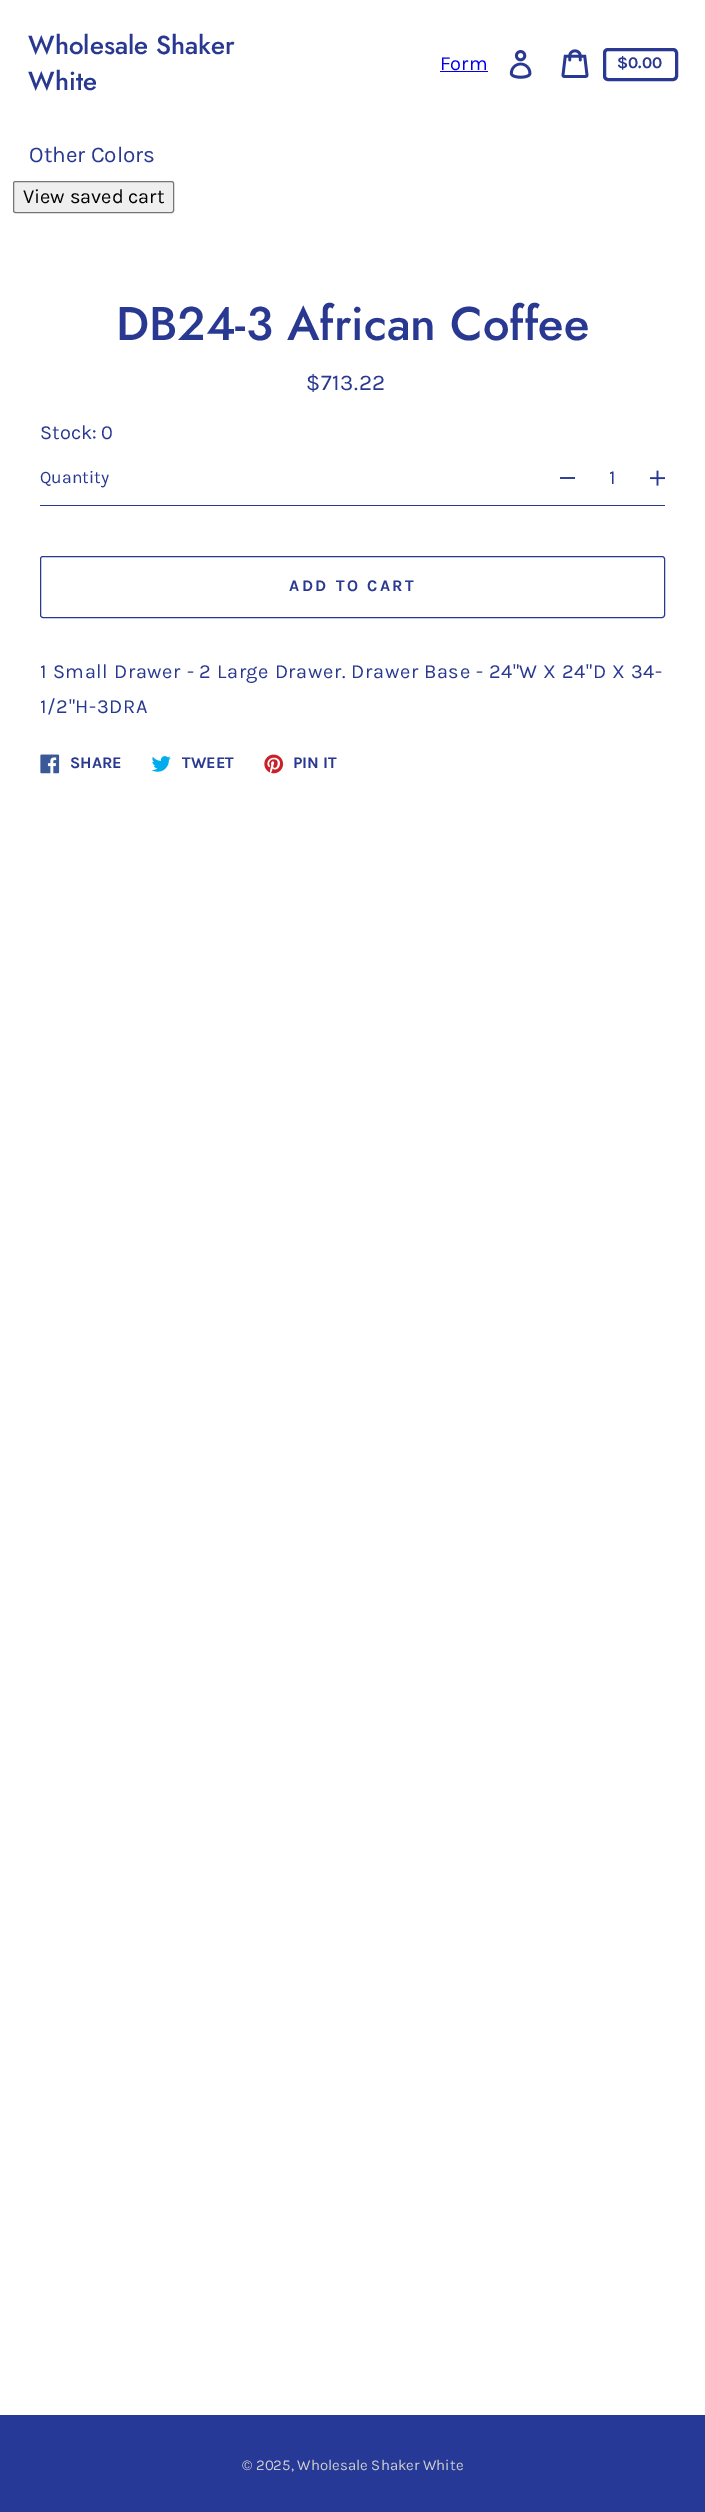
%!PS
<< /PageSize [705 2512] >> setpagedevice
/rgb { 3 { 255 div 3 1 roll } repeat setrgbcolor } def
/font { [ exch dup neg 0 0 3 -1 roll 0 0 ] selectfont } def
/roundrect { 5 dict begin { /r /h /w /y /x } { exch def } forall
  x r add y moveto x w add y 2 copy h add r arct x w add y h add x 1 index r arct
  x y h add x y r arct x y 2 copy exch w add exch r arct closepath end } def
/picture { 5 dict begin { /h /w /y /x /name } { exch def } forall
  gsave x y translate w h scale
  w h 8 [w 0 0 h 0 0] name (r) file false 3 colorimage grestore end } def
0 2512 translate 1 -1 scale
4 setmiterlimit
255 255 255 rgb
0 0 705 2512 rectfill
0 0 238 rgb
440 71 48 1 rectfill
(img/1.rgb) 509 50 23 29 picture
(img/2.rgb) 561 49 28 29 picture
41 56 144 rgb
3 setlinewidth
604.5 49.5 72 30 3.5 roundrect stroke
239 239 239 rgb
13.5 181.5 160 31 2 roundrect gsave fill grestore
118 118 118 rgb
1 setlinewidth
stroke
41 56 144 rgb
40 505 625 1 rectfill
52 66 150 rgb
560 477 15 2 rectfill
(img/3.rgb) 650 470 15 16 picture
41 56 144 rgb
40.5 556.5 624 61 2.5 roundrect stroke
(img/4.rgb) 40 754 20 20 picture
(img/5.rgb) 151 756 20 16 picture
(img/6.rgb) 264 754 20 20 picture
38 57 150 rgb
0 2415 705 97 rectfill
/Jost-Medium 26 font
41 56 144 rgb
28 54 moveto (Wholesale Shaker) show
28 90 moveto (White) show
/Karla-Regular 20 font
0 0 238 rgb
440 70 moveto (Form) show
/Karla-Bold 16.25 font
41 56 144 rgb
617 68 moveto ($0.00) show
/Karla-Regular 22.5 font
29 162 moveto (Other Colors) show
/Karla-Regular 20 font
0 0 0 rgb
23 203 moveto (View saved cart) show
/Jost-Medium 47.1 font
41 56 144 rgb
116 340 moveto (DB24-3 African Coffee) show
/Karla-Regular 22.5 font
306 390 moveto 0.62 0 ($713.22) ashow
/Karla-Regular 20 font
40 439 moveto (Stock: 0) show
/Karla-Regular 17.5 font
40 483 moveto (Quantity) show
/Karla-Regular 20 font
609 484 moveto (1) show
/Karla-Bold 16.25 font
289 591 moveto 2.5 0 (ADD TO CART) ashow
/Karla-Regular 20 font
40 678 moveto 0.62 0 (1 Small Drawer - 2 Large Drawer. Drawer Base - 24"W X 24"D X 34-) ashow
40 713 moveto 0.62 0 (1/2"H-3DRA) ashow
/Karla-Bold 16.25 font
[
  [(SHARE) 70 768]
  [(TWEET) 182 768]
  [(PIN IT) 293 768]
] { aload pop moveto show } forall
/Karla-Regular 15 font
207 207 207 rgb
242 2470 moveto (© 2025, Wholesale Shaker White) show
showpage
